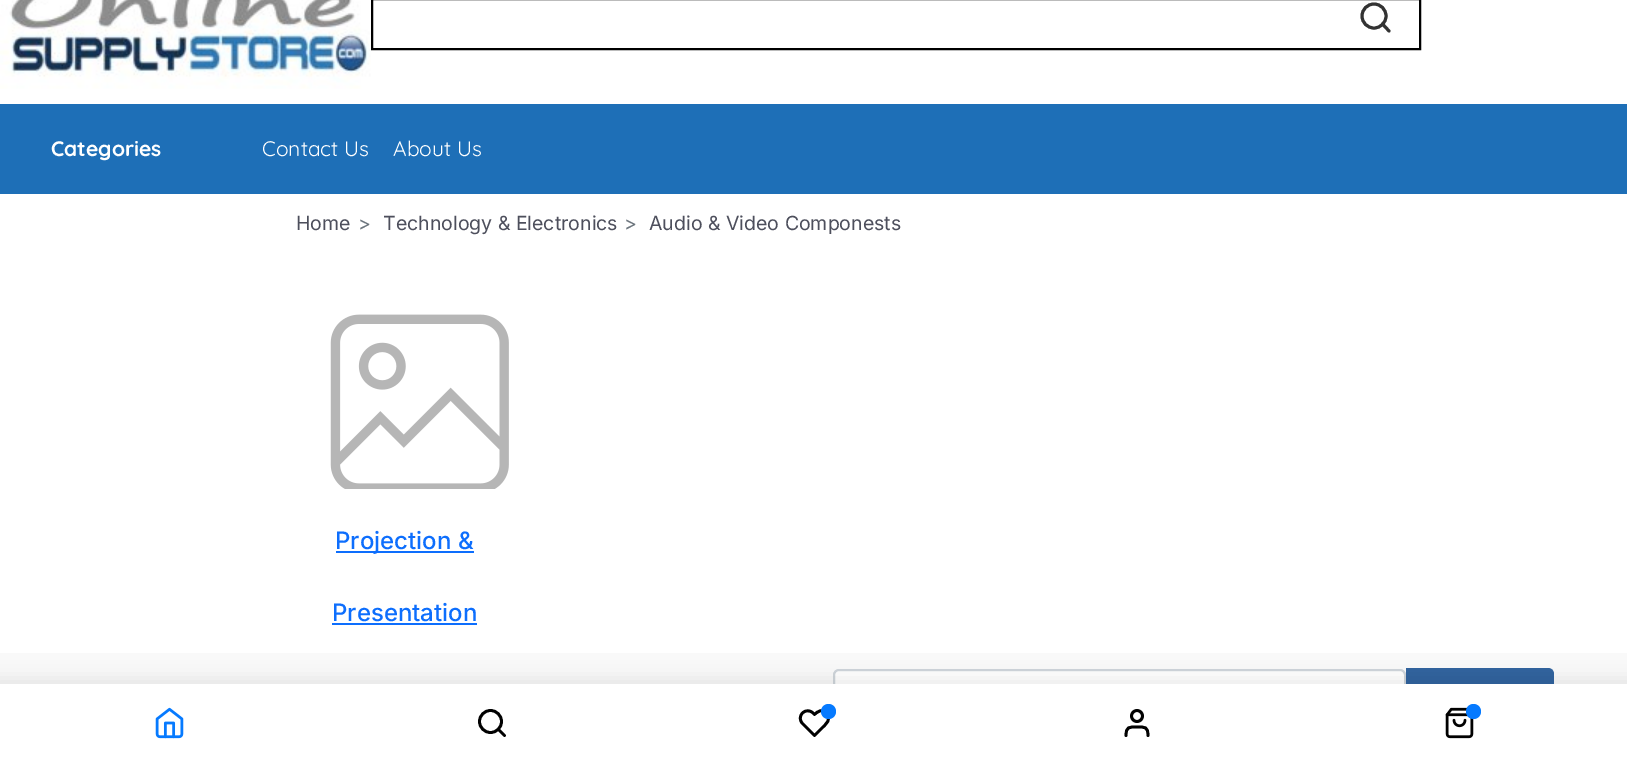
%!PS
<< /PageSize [1627 764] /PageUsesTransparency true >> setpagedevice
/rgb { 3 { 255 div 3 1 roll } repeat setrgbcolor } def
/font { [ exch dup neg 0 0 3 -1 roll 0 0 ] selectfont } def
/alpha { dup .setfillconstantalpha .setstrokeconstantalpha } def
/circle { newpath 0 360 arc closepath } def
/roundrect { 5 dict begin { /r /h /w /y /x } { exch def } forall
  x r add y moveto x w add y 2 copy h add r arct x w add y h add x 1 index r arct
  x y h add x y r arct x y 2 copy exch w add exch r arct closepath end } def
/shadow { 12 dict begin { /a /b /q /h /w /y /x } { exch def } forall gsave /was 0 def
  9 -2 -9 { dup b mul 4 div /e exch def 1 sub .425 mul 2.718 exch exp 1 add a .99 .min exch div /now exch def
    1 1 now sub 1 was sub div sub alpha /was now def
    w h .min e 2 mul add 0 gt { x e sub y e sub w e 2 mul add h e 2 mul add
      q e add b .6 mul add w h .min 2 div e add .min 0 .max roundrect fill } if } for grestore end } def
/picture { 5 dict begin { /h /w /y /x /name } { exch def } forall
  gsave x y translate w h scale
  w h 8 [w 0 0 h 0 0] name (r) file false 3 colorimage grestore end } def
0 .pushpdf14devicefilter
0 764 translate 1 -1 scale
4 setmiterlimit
255 255 255 rgb
0 0 1627 764 rectfill
(img/1.rgb) 0 0 371 89 picture
0 0 0 rgb
2 setlinewidth
372 -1 1048 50 rectstroke
51 51 51 rgb
3 setlinewidth
1374 16 12 circle stroke
1 setlinecap
1 setlinejoin
1389 31 moveto 1382.5 24 lineto stroke
30 111 183 rgb
0 104 1627 90 rectfill
(img/2.rgb) 330 314 179 175 picture
[
  [336 551 138 2 13 110 253]
  [332 623 145 2 13 110 253]
  [0 653 1627 31 249 249 249]
] { aload pop rgb rectfill } forall
255 255 255 rgb
834 670 571 55 5 roundrect gsave fill grestore
206 212 218 rgb
2 setlinewidth
0 setlinecap
0 setlinejoin
stroke
49 98 159 rgb
1406 668 moveto 1548 668 lineto 1551.5 668 1554 670.5 1554 674 curveto 1554 722 lineto 1554 725.5 1551.5 728 1548 728 curveto 1406 728 lineto closepath fill
0 0 0 rgb
-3 678 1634 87 0 8 0.07 shadow
255 255 255 rgb
0 684 1627 80 rectfill
(img/3.rgb) 155 707 29 32 picture
1 1 1 rgb
2.8 setlinewidth
490.5 721.5 11 circle stroke
1 setlinecap
1 setlinejoin
504.5 735.5 moveto 498.5 729.5 lineto stroke
826.5 713 moveto 822.5 708.5 818 711 814.5 714.5 curveto 813 713 lineto 810 710 805.5 710 802.5 713 curveto 799.5 716 799.5 720.5 802.5 723.5 curveto 814.5 735.5 lineto 821.5 728.5 lineto 825.5 724.5 832.5 719 826.5 713 curveto closepath stroke
6 122 255 rgb
828.5 711.5 7.5 circle fill
1 1 1 rgb
0 setlinecap
0 setlinejoin
1137 716 5.5 circle stroke
1 setlinecap
1 setlinejoin
1148 735.5 moveto 1148 726.5 1145 727 1137 727 curveto 1129 727 1126 726.5 1126 735.5 curveto stroke
(img/4.rgb) 1445 707 29 32 picture
6 122 255 rgb
1473.5 711.5 7.5 circle fill
/Quicksand-Bold 21 font
255 255 255 rgb
51 156 moveto (Categories) show
/Quicksand-Regular 21 font
262 156 moveto (Contact Us) show
393 156 moveto (About Us) show
/Inter-Regular 19.5 font
77 79 92 rgb
296 230 moveto (Home) show
108 117 125 rgb
358 230 moveto (>) show
77 79 92 rgb
383 230 moveto (Technology & Electronics) show
108 117 125 rgb
624 230 moveto (>) show
77 79 92 rgb
649 230 moveto (Audio & Video Componests) show
/Inter-Medium 24 font
13 110 253 rgb
335 549 moveto (Projection &) show
332 621 moveto (Presentation) show
.poppdf14devicefilter showpage
